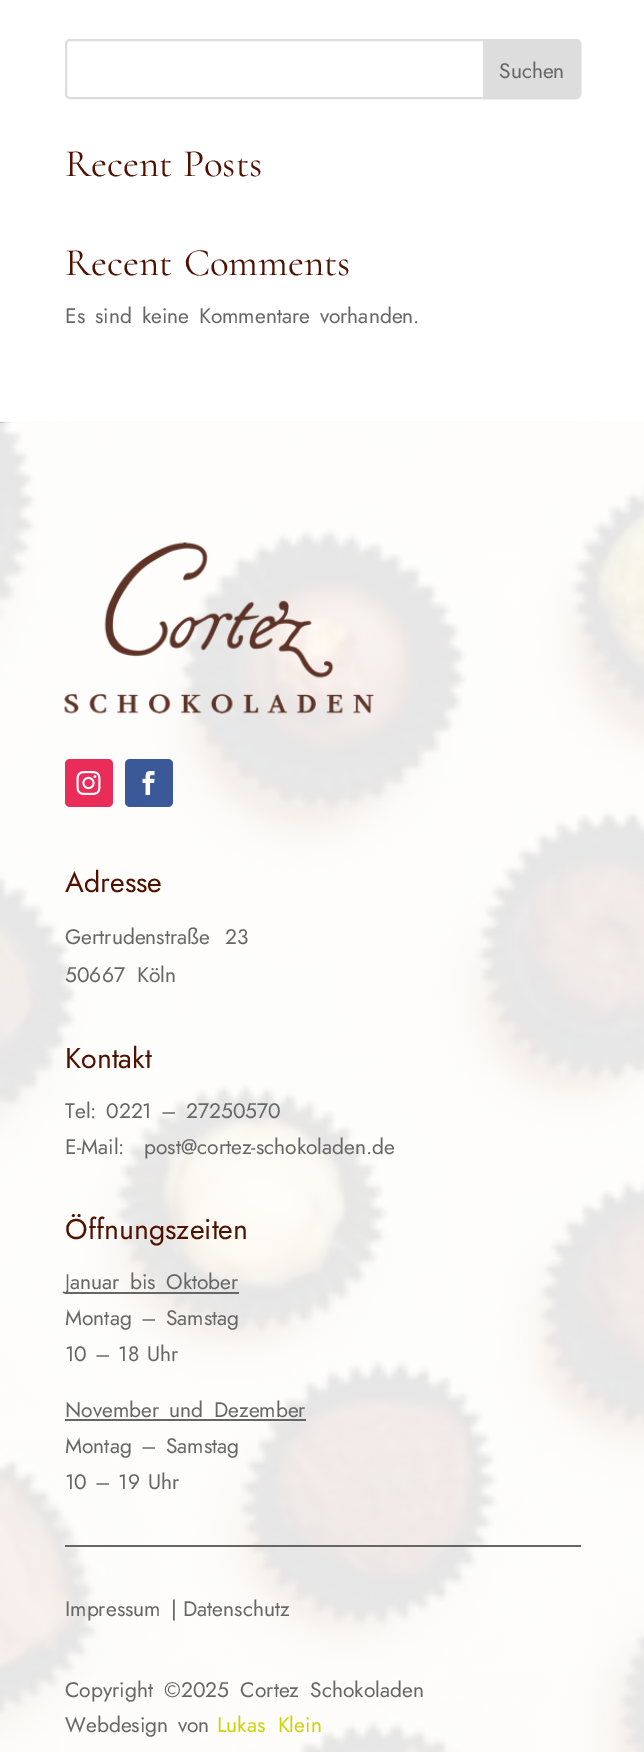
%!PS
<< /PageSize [644 1752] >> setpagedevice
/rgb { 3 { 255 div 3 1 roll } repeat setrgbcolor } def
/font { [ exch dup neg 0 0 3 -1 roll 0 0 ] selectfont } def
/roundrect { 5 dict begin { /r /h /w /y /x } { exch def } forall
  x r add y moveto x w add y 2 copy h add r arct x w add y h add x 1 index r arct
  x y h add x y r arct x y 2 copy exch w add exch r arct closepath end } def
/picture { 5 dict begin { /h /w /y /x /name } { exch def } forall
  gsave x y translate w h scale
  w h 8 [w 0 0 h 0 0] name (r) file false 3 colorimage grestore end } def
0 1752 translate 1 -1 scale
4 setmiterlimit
255 255 255 rgb
0 0 644 1752 rectfill
221 221 221 rgb
2 setlinewidth
66 40 514 58 4 roundrect stroke
484 40 moveto 576 40 lineto 578 40 580 42 580 44 curveto 580 94 lineto 580 96 578 98 576 98 curveto 484 98 lineto closepath gsave fill grestore
stroke
(img/1.rgb) 0 422 644 1330 picture
(img/2.rgb) 64 542 310 172 picture
234 44 89 rgb
65 759 48 48 5 roundrect fill
(img/3.rgb) 76 771 25 24 picture
59 89 152 rgb
125 759 48 48 5 roundrect fill
(img/4.rgb) 142 771 13 24 picture
[
  [65 1292 174 2 102 102 102]
  [65 1419 241 2 102 102 102]
  [65 1545 516 2 102 102 102]
] { aload pop rgb rectfill } forall
/Jost-Regular 21 font
499 78 moveto (Suchen) show
/Cormorant-Regular 39 font
81 17 0 rgb
65 176 moveto 1 0 32 (Recent Posts) widthshow
65 275 moveto 2 0 32 (Recent Comments) widthshow
/Jost-Regular 21 font
102 102 102 rgb
65 323 moveto 3.5 0 32 (Es sind keine Kommentare vorhanden.) widthshow
/Jost-Regular 28.5 font
81 17 0 rgb
65 892 moveto (Adresse) show
/Jost-Regular 21 font
102 102 102 rgb
65 944 moveto 9 0 32 (Gertrudenstraße 23) widthshow
65 982 moveto 6 0 32 (50667 Köln) widthshow
/Jost-Regular 28.5 font
81 17 0 rgb
65 1068 moveto (Kontakt) show
/Jost-Regular 21 font
102 102 102 rgb
65 1118 moveto 3 0 32 (Tel: 0221 – 27250570) widthshow
65 1154 moveto 13 0 32 (E-Mail: post@cortez-schokoladen.de) widthshow
/Jost-Regular 28.5 font
81 17 0 rgb
65 1239 moveto (Öffnungszeiten) show
/Jost-Regular 21 font
102 102 102 rgb
65 1289 moveto 4 0 32 (Januar bis Oktober) widthshow
65 1325 moveto 3 0 32 (Montag – Samstag) widthshow
65 1361 moveto 1.5 0 32 (10 – 18 Uhr) widthshow
65 1417 moveto 4 0 32 (November und Dezember) widthshow
65 1453 moveto 3 0 32 (Montag – Samstag) widthshow
65 1489 moveto 1.5 0 32 (10 – 19 Uhr) widthshow
[
  [(Impressum) 65 1616]
  [(|) 171 1616]
  [(Datenschutz) 183 1616]
] { aload pop moveto show } forall
65 1697 moveto 5 0 32 (Copyright ©2025 Cortez Schokoladen) widthshow
65 1732 moveto 3 0 32 (Webdesign von) widthshow
205 210 10 rgb
217 1732 moveto 6 0 32 (Lukas Klein) widthshow
showpage
